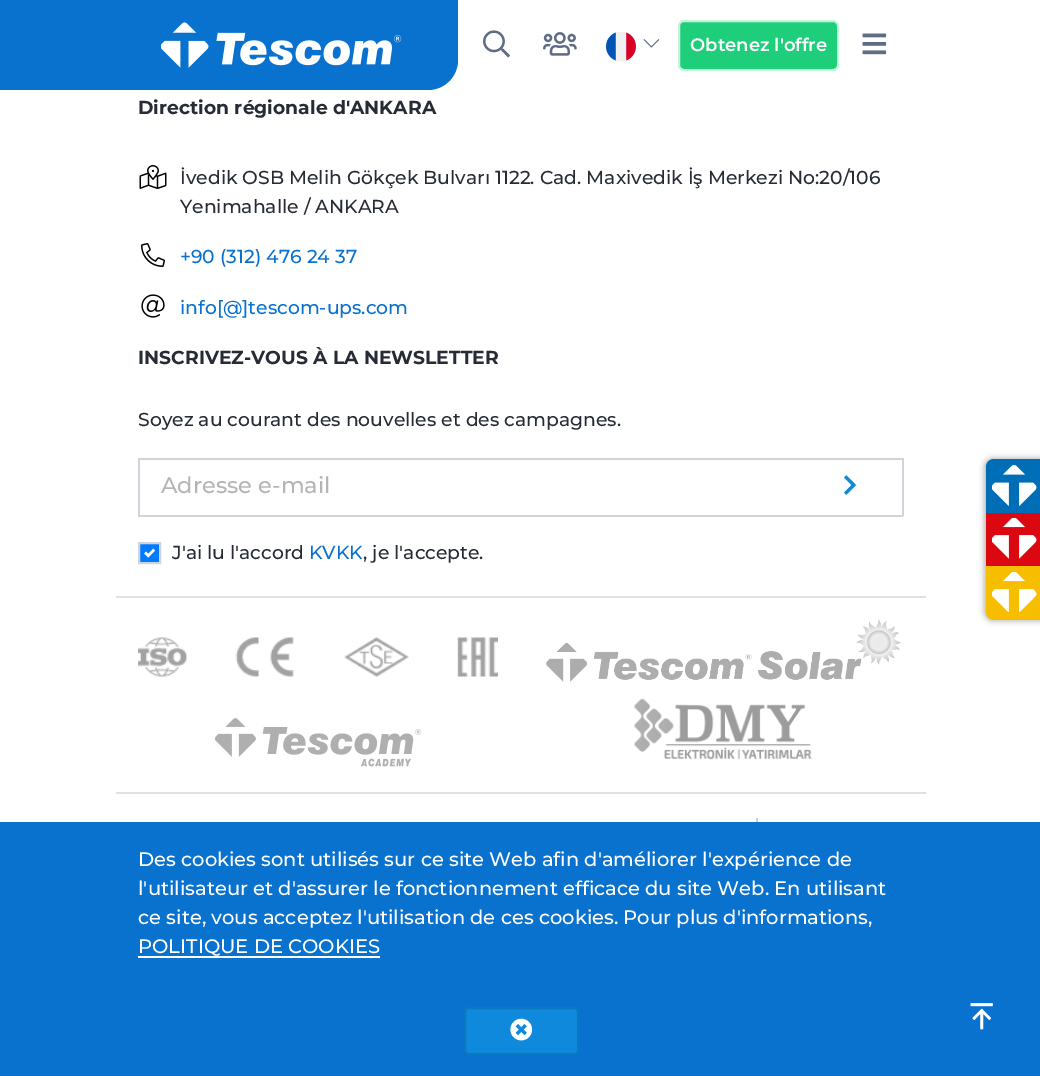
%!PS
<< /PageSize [1040 1076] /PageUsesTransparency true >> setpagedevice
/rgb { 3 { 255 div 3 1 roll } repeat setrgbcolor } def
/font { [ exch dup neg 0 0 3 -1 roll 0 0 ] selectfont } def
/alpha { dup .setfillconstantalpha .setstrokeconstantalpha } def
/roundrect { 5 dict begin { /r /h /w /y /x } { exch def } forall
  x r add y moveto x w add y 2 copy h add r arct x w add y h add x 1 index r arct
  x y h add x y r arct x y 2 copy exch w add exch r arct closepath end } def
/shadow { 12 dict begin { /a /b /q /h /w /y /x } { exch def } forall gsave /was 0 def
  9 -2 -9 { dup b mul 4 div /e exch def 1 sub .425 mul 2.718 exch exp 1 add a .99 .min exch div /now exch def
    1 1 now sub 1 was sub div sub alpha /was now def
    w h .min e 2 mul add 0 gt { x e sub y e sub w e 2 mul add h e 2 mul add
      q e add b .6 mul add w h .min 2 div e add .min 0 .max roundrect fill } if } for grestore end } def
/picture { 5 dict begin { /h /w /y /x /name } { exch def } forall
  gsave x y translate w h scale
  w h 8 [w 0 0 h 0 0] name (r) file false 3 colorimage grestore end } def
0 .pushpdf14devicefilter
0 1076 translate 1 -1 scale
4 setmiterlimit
255 255 255 rgb
0 0 1040 1076 rectfill
9 113 206 rgb
0 0 moveto 458 0 lineto 458 60 lineto 458 76.5 444.5 90 428 90 curveto 0 90 lineto closepath fill
(img/1.rgb) 161 22 241 46 picture
(img/2.rgb) 483 30 27 28 picture
(img/3.rgb) 543 32 34 24 picture
(img/4.rgb) 606 32 30 30 picture
(img/5.rgb) 643 39 17 9 picture
30 206 122 rgb
679 21 159 49 5 roundrect gsave fill grestore
197 242 220 rgb
2 setlinewidth
stroke
(img/6.rgb) 862 33 25 22 picture
222 226 230 rgb
116 596 810 2 rectfill
(img/7.rgb) 139 165 28 24 picture
(img/8.rgb) 141 243 24 24 picture
(img/9.rgb) 141 294 24 24 picture
[
  [138 458 765 2 206 212 218]
  [138 515 662 2 206 212 218]
  [138 458 2 58 206 212 218]
  [902 458 2 58 206 212 218]
  [798 515 105 2 206 212 218]
] { aload pop rgb rectfill } forall
(img/10.rgb) 844 475 12 20 picture
0 123 255 rgb
139 543 moveto 160 543 lineto 160 563 lineto 139 563 lineto closepath gsave fill grestore
206 212 218 rgb
stroke
(img/11.rgb) 144 548 11 10 picture
222 226 230 rgb
116 792 810 2 rectfill
(img/12.rgb) 138 637 360 40 picture
(img/13.rgb) 546 619 355 63 picture
(img/14.rgb) 214 718 208 49 picture
(img/15.rgb) 634 698 178 62 picture
204 204 204 rgb
756 818 2 4 rectfill
9 113 206 rgb
0 822 1040 254 rectfill
(img/16.rgb) 970 1003 23 27 picture
0 0 0 rgb
984 458 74 163 9 3 0.3 shadow
0 110 183 rgb
994 459 moveto 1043 459 lineto 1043 513 lineto 986 513 lineto 986 467 lineto 986 462.5 989.5 459 994 459 curveto closepath fill
(img/17.rgb) 992 465 45 41 picture
219 8 18 rgb
986 513 54 53 rectfill
(img/18.rgb) 992 518 45 41 picture
247 190 0 rgb
986 566 moveto 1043 566 lineto 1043 620 lineto 994 620 lineto 989.5 620 986 616.5 986 612 curveto closepath fill
(img/19.rgb) 992 572 45 40 picture
255 255 255 rgb
138 956 242 2 rectfill
15 137 219 rgb
465 1008 113 46 4 roundrect gsave fill grestore
13 120 192 rgb
stroke
(img/20.rgb) 510 1018 23 23 picture
/Montserrat-SemiBold 18 font
255 255 255 rgb
690 51 moveto (Obtenez l'offre) show
/Montserrat-Bold 18.75 font
38 43 53 rgb
138 114 moveto (Direction régionale d'ANKARA) show
/Montserrat-Medium 18.75 font
180 184 moveto (İvedik OSB Melih Gökçek Bulvarı 1122. Cad. Maxivedik İş Merkezi No:20/106) show
180 213 moveto (Yenimahalle / ANKARA) show
9 113 206 rgb
180 263 moveto (+90 \(312\) 476 24 37) show
180 314 moveto (info[@]tescom-ups.com) show
/Montserrat-Bold 18.75 font
38 43 53 rgb
138 364 moveto (INSCRIVEZ-VOUS À LA NEWSLETTER) show
/Montserrat-Medium 18.75 font
138 426 moveto (Soyez au courant des nouvelles et des campagnes.) show
/Montserrat-Medium 22.5 font
181 181 181 rgb
161 493 moveto (Adresse e-mail) show
/Montserrat-Medium 18.75 font
38 43 53 rgb
172 559 moveto (J'ai lu l'accord) show
9 113 206 rgb
309 559 moveto (KVKK) show
38 43 53 rgb
363 559 moveto (, je l'accepte.) show
/Montserrat-Medium 19.5 font
255 255 255 rgb
[
  [(Des cookies sont utilisés sur ce site Web afin d'améliorer l'expérience de) 138 866]
  [(l'utilisateur et d'assurer le fonctionnement efficace du site Web. En utilisant) 138 895]
  [(ce site, vous acceptez l'utilisation de ces cookies. Pour plus d'informations,) 138 924]
  [(POLITIQUE DE COOKIES) 138 953]
] { aload pop moveto show } forall
.poppdf14devicefilter showpage
